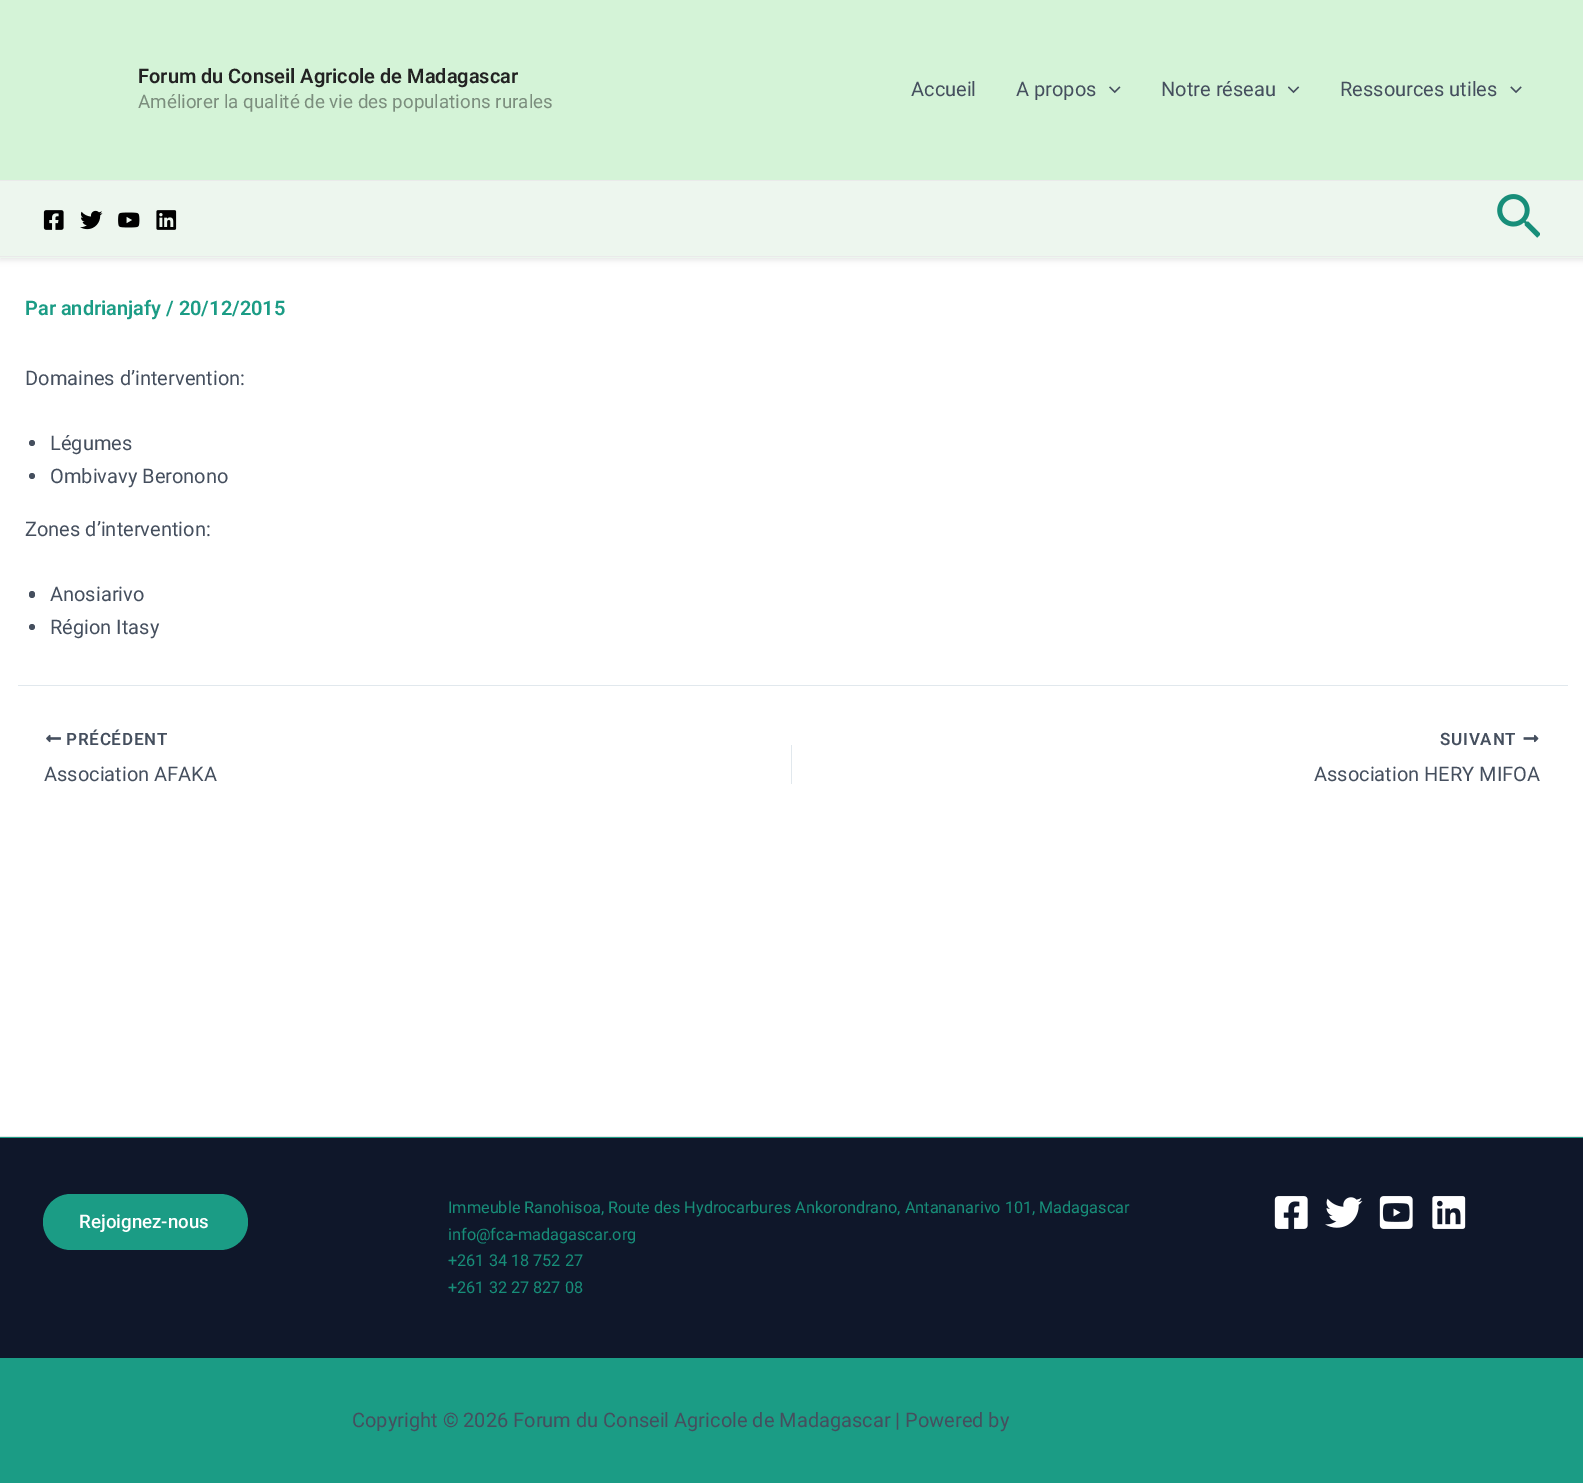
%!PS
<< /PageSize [1583 1483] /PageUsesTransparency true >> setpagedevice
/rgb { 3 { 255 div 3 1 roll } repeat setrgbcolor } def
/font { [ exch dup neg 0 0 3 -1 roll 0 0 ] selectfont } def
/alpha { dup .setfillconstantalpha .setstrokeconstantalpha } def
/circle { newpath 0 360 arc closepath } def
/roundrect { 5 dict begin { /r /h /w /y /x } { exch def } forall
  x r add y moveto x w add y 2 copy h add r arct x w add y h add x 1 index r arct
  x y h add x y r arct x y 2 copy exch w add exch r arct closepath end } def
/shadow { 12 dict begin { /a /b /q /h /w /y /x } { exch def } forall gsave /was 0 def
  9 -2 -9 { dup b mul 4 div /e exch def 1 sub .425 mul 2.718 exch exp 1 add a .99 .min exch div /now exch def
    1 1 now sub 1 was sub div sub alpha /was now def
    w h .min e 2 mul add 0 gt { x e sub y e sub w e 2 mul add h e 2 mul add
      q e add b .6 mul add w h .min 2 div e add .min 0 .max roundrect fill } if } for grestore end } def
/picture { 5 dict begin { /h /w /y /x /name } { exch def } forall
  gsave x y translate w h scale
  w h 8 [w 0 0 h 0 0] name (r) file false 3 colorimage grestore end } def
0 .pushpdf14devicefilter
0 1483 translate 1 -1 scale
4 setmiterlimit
255 255 255 rgb
0 0 1583 1483 rectfill
0 0 0 rgb
0 3 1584 257 0 3 0.1 shadow
212 243 215 rgb
0 0 1583 180 rectfill
234 234 234 rgb
0 180 1583 1 rectfill
(img/1.rgb) 1109 86 12 8 picture
(img/2.rgb) 1288 86 12 8 picture
(img/3.rgb) 1510 86 12 7 picture
237 246 238 rgb
0 181 1583 77 rectfill
234 234 234 rgb
0 256 1583 1 rectfill
(img/4.rgb) 43 210 21 20 picture
(img/5.rgb) 80 210 23 20 picture
(img/6.rgb) 118 212 22 16 picture
(img/7.rgb) 156 210 21 20 picture
(img/8.rgb) 1497 194 43 44 picture
69 79 94 rgb
32 443 3 circle fill
32 476 3 circle fill
29 591 6 7 3 roundrect fill
32 627 3 circle fill
225 232 237 rgb
18 685 1550 1 rectfill
(img/9.rgb) 46 734 15 9 picture
791 745 1 39 rectfill
(img/10.rgb) 1523 734 16 9 picture
[
  [0 1137 1583 346 27 156 133]
  [0 1138 1583 220 15 23 42]
  [0 1136 1583 1 230 230 230]
] { aload pop rgb rectfill } forall
27 156 133 rgb
43 1194 205 56 28 roundrect fill
(img/11.rgb) 1274 1196 34 33 picture
(img/12.rgb) 1325 1197 38 31 picture
(img/13.rgb) 1379 1196 34 33 picture
(img/14.rgb) 1432 1196 34 33 picture
/Roboto-SemiBold 20 font
34 34 34 rgb
138 83 moveto (Forum du Conseil Agricole de Madagascar) show
/Roboto-Regular 18.75 font
123 141 125 rgb
138 108 moveto (Améliorer la qualité de vie des populations rurales) show
/Roboto-Regular 20 font
69 79 94 rgb
[
  [(Accueil) 911 96]
  [(A propos) 1016 96]
  [(Notre réseau) 1161 96]
  [(Ressources utiles) 1340 96]
] { aload pop moveto show } forall
/Roboto-SemiBold 20 font
27 156 133 rgb
25 315 moveto (Par andrianjafy / 20/12/2015) show
/Roboto-Regular 20 font
69 79 94 rgb
[
  [(Domaines d’intervention:) 25 385]
  [(Légumes) 50 450]
  [(Ombivavy Beronono) 50 483]
  [(Zones d’intervention:) 25 536]
  [(Anosiarivo) 50 601]
  [(Région Itasy) 50 634]
] { aload pop moveto show } forall
/Roboto-SemiBold 17 font
66 745 moveto 0.75 0 (PRÉCÉDENT) ashow
/Roboto-Regular 20 font
44 781 moveto (Association AFAKA) show
/Roboto-SemiBold 17 font
1440 745 moveto 0.75 0 (SUIVANT) ashow
/Roboto-Regular 20 font
1314 781 moveto (Association HERY MIFOA) show
/Roboto-Medium 18.75 font
255 255 255 rgb
79 1228 moveto (Rejoignez-nous) show
/Roboto-Regular 16.25 font
23 142 121 rgb
[
  [(Immeuble Ranohisoa, Route des Hydrocarbures Ankorondrano, Antananarivo 101, Madagascar) 448 1213]
  [(info@fca-madagascar.org) 448 1240]
  [(+261 34 18 752 27) 448 1266]
  [(+261 32 27 827 08) 448 1293]
] { aload pop moveto show } forall
/Roboto-Regular 20 font
69 79 94 rgb
352 1427 moveto (Copyright © 2026 Forum du Conseil Agricole de Madagascar | Powered by) show
.poppdf14devicefilter showpage
